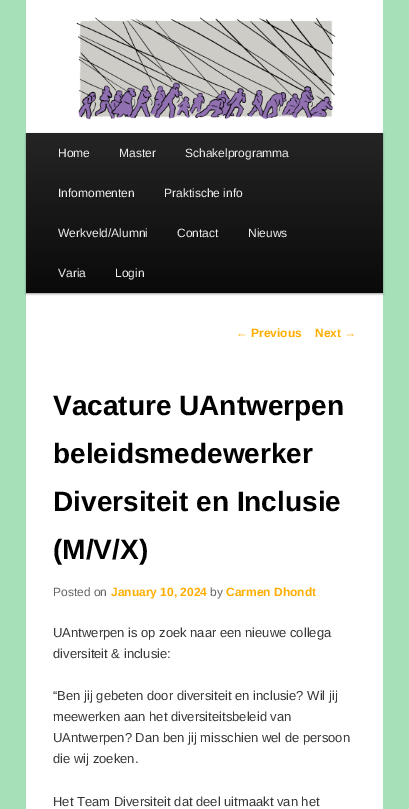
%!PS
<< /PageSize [409 809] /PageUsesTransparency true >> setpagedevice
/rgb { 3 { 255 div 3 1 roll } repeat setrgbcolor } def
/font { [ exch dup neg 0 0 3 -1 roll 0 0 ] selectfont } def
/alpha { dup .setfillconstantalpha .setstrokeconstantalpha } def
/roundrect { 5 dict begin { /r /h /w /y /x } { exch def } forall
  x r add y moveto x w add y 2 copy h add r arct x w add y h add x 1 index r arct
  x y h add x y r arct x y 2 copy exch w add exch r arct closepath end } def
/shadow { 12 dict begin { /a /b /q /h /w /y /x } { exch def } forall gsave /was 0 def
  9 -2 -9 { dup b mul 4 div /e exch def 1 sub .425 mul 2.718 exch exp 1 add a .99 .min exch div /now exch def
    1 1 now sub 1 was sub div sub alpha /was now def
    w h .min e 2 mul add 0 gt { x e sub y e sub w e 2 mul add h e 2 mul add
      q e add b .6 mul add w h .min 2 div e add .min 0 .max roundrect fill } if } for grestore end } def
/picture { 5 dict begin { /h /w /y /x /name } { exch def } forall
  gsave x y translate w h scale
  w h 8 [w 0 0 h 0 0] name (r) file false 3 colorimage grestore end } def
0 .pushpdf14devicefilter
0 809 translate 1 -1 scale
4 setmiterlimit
166 224 185 rgb
0 0 409 809 rectfill
255 255 255 rgb
26 0 357 809 rectfill
(img/1.rgb) 76 17 260 103 picture
0 0 0 rgb
26 134 357 160 0 1 0.4 shadow
gsave 26 133 moveto 383 133 lineto 383 293 lineto 26 293 lineto closepath clip newpath
<< /ShadingType 2 /ColorSpace /DeviceRGB /Coords [205 133 205 293] /Extend [true true] /Function << /FunctionType 2 /Domain [0 1] /C0 [0.145 0.145 0.145] /C1 [0.039 0.039 0.039] /N 1 >> >> shfill grestore
/LiberationSans-Regular 12 font
238 238 238 rgb
[
  [(Home) 58 157]
  [(Master) 119 157]
  [(Schakelprogramma) 185 157]
  [(Infomomenten) 58 197]
  [(Praktische info) 164 197]
  [(Werkveld/Alumni) 58 237]
  [(Contact) 177 237]
  [(Nieuws) 248 237]
  [(Varia) 58 277]
  [(Login) 115 277]
] { aload pop moveto show } forall
255 174 0 rgb
236 337 moveto (←) show
/LiberationSans-Bold 12 font
251 337 moveto (Previous) show
315 337 moveto (Next) show
/LiberationSans-Regular 12 font
344 337 moveto (→) show
/LiberationSans-Bold 28 font
0 0 0 rgb
[
  [(Vacature UAntwerpen) 53 415]
  [(beleidsmedewerker) 53 463]
  [(Diversiteit en Inclusie) 53 511]
  [(\(M/V/X\)) 53 559]
] { aload pop moveto show } forall
/LiberationSans-Regular 12 font
102 102 102 rgb
53 596 moveto (Posted on) show
/LiberationSans-Bold 12 font
255 174 0 rgb
111 596 moveto (January 10, 2024) show
/LiberationSans-Regular 12 font
102 102 102 rgb
210 596 moveto (by) show
/LiberationSans-Bold 12 font
255 174 0 rgb
226 596 moveto (Carmen Dhondt) show
/LiberationSans-Regular 13 font
55 55 55 rgb
[
  [(UAntwerpen is op zoek naar een nieuwe collega) 53 637]
  [(diversiteit & inclusie:) 53 658]
  [(“Ben jij gebeten door diversiteit en inclusie? Wil jij) 53 700]
  [(meewerken aan het diversiteitsbeleid van) 53 721]
  [(UAntwerpen? Dan ben jij misschien wel de persoon) 53 742]
  [(die wij zoeken.) 53 763]
  [(Het Team Diversiteit dat deel uitmaakt van het) 53 806]
] { aload pop moveto show } forall
.poppdf14devicefilter showpage
